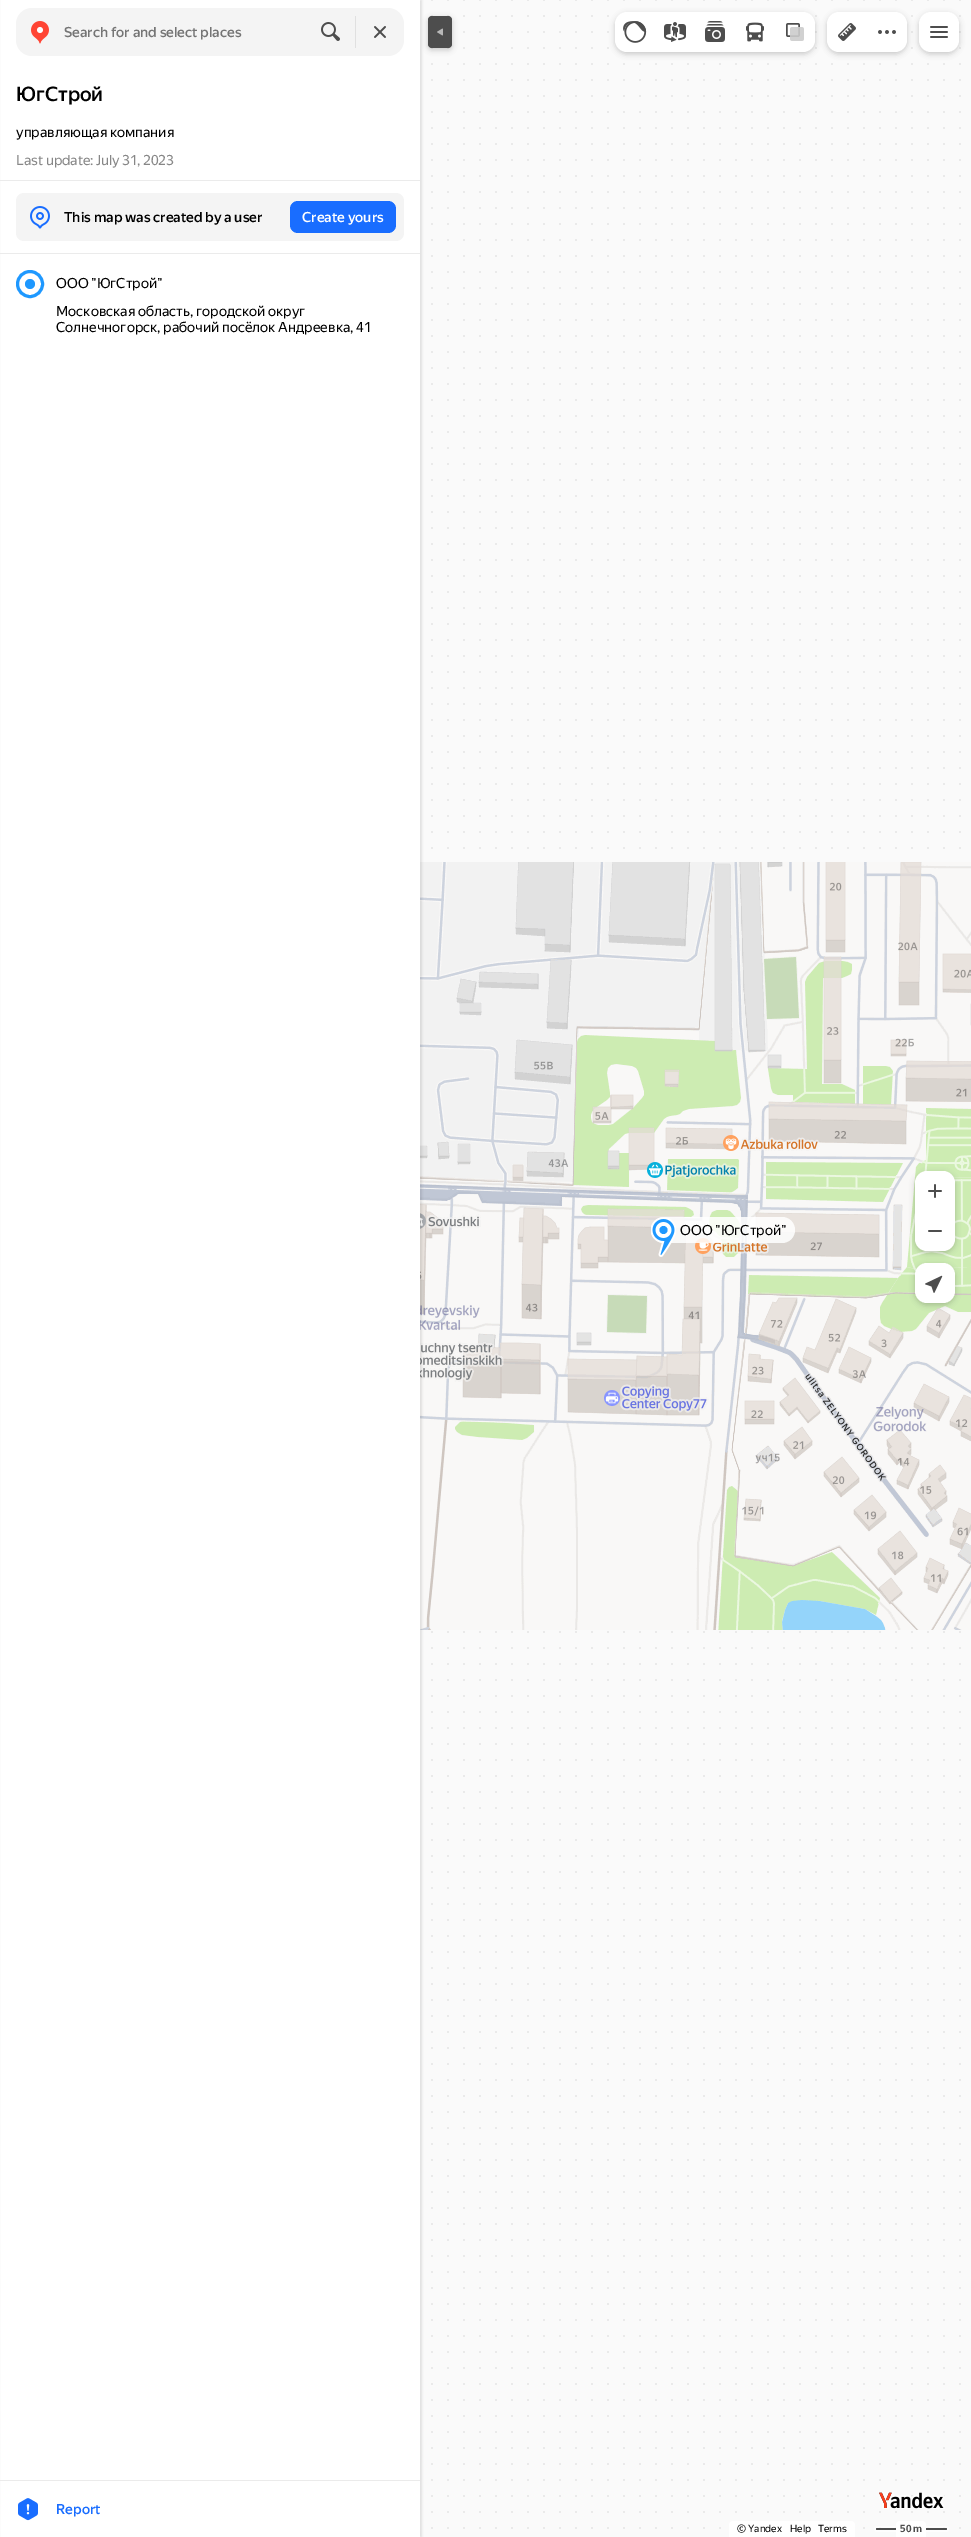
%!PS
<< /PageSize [971 2537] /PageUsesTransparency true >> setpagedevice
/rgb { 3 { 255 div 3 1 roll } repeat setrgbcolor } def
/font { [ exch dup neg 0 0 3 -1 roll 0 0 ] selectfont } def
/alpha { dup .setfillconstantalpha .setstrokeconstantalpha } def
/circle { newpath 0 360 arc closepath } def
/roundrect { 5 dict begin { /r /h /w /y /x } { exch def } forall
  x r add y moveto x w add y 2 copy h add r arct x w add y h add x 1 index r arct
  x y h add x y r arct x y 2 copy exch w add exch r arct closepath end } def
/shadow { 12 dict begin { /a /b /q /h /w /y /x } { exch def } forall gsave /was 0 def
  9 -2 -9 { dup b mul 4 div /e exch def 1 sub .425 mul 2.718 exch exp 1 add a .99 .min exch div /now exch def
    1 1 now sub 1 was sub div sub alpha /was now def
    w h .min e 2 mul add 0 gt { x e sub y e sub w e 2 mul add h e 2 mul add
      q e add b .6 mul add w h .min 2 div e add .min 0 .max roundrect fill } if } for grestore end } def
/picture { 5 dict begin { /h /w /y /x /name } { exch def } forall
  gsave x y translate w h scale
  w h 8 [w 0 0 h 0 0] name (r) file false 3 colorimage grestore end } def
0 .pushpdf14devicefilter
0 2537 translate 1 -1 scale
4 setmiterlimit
255 255 255 rgb
0 0 971 2537 rectfill
(img/1.rgb) 420 0 551 2537 picture
(img/20.rgb) 420 862 237 256 picture
(img/23.rgb) 420 1118 237 256 picture
(img/26.rgb) 420 1374 237 256 picture
0 0 0 rgb
2 0 420 2537 0 1 0.1 shadow
428 18 24 32 4 3 0.2 shadow
255 255 255 rgb
1 0 419 2537 rectfill
244 244 244 rgb
16 8 388 48 16 roundrect fill
(img/2.rgb) 31 21 18 23 picture
(img/3.rgb) 321 22 19 19 picture
224 224 224 rgb
355 16 1 32 rectfill
(img/4.rgb) 374 26 12 12 picture
0 0 0 rgb
615 14 200 40 12 3 0.2 shadow
255 255 255 rgb
627 12 moveto 655 12 lineto 655 52 lineto 627 52 lineto 620.5 52 615 46.5 615 40 curveto 615 24 lineto 615 17.5 620.5 12 627 12 curveto closepath fill
(img/5.rgb) 623 21 24 22 picture
655 12 120 40 rectfill
(img/6.rgb) 664 22 22 20 picture
775 12 moveto 803 12 lineto 809.5 12 815 17.5 815 24 curveto 815 40 lineto 815 46.5 809.5 52 803 52 curveto 775 52 lineto closepath fill
(img/7.rgb) 786 23 18 18 picture
(img/8.rgb) 705 21 20 21 picture
(img/9.rgb) 746 22 18 20 picture
0 0 0 rgb
827 14 80 40 12 3 0.2 shadow
255 255 255 rgb
839 12 moveto 867 12 lineto 867 52 lineto 839 52 lineto 832.5 52 827 46.5 827 40 curveto 827 24 lineto 827 17.5 832.5 12 839 12 curveto closepath fill
(img/10.rgb) 838 23 18 18 picture
867 12 moveto 895 12 lineto 901.5 12 907 17.5 907 24 curveto 907 40 lineto 907 46.5 901.5 52 895 52 curveto 867 52 lineto closepath fill
(img/11.rgb) 878 30 18 4 picture
0 0 0 rgb
919 14 40 40 12 3 0.2 shadow
255 255 255 rgb
919 12 40 40 12 roundrect fill
(img/12.rgb) 930 26 18 12 picture
(img/24.rgb) 657 1118 256 256 picture
(img/25.rgb) 913 1118 58 256 picture
0 0 0 rgb
915 1173 40 80 12 3 0.2 shadow
255 255 255 rgb
927 1171 moveto 943 1171 lineto 949.5 1171 955 1176.5 955 1183 curveto 955 1211 lineto 915 1211 lineto 915 1183 lineto 915 1176.5 920.5 1171 927 1171 curveto closepath fill
(img/13.rgb) 928 1184 14 14 picture
915 1211 moveto 955 1211 lineto 955 1239 lineto 955 1245.5 949.5 1251 943 1251 curveto 927 1251 lineto 920.5 1251 915 1245.5 915 1239 curveto closepath fill
(img/14.rgb) 928 1230 14 2 picture
0 0 0 rgb
915 1265 40 40 12 3 0.2 shadow
255 255 255 rgb
915 1263 40 40 12 roundrect fill
(img/15.rgb) 925 1275 18 18 picture
77 77 77 rgb
428 16 24 32 4 roundrect fill
(img/16.rgb) 437 28 6 8 picture
235 235 235 rgb
0 180 420 1 rectfill
0 253 420 1 rectfill
244 244 244 rgb
16 193 388 48 8 roundrect fill
(img/17.rgb) 30 206 20 23 picture
25 109 255 rgb
290 201 106 32 8 roundrect fill
30 152 255 rgb
3 setlinewidth
30 284 12.5 circle stroke
30 284 5 circle fill
235 235 235 rgb
0 2480 420 1 rectfill
(img/18.rgb) 18 2498 20 23 picture
(img/19.rgb) 879 2492 66 17 picture
255 255 255 rgb
733 2521 moveto 851 2521 lineto 853 2521 855 2523 855 2525 curveto 855 2537 lineto 729 2537 lineto 729 2525 lineto 729 2523 731 2521 733 2521 curveto closepath fill
0.6 alpha
874 2526 75 6 3 roundrect fill
1 alpha
77 77 77 rgb
876 2528 71 2 1 roundrect fill
255 255 255 rgb
900 2521 moveto 922 2521 lineto 924 2521 926 2523 926 2525 curveto 926 2537 lineto 896 2537 lineto 896 2525 lineto 896 2523 898 2521 900 2521 curveto closepath fill
(img/21.rgb) 657 862 256 256 picture
(img/22.rgb) 913 862 58 256 picture
(img/27.rgb) 657 1374 256 256 picture
(img/28.rgb) 913 1374 58 256 picture
0.85 alpha
651 1217 144 26 13 roundrect fill
1 alpha
(img/29.rgb) 651 1217 25 40 picture
30 152 255 rgb
663.5 1230 4 circle fill
/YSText-Medium 14 font
117 117 117 rgb
64 37 moveto (Search for and select places) show
/YSText-Medium 20 font
0 0 0 rgb
16 101 moveto (ЮгСтрой) show
/YSText-Regular 14 font
16 137 moveto (управляющая компания) show
135 135 135 rgb
16 165 moveto -0.5 0 32 (Last update: July 31, 2023) widthshow
/YSText-Medium 14 font
0 0 0 rgb
64 222 moveto (This map was created by a user) show
255 255 255 rgb
302 222 moveto (Create yours) show
/YSText-Regular 14 font
0 0 0 rgb
[
  [(ООО "ЮгСтрой") 56 288]
  [(Московская область, городской округ) 56 316]
  [(Солнечногорск, рабочий посёлок Андреевка, 41) 56 332]
] { aload pop moveto show } forall
/YSText-Medium 14 font
25 109 255 rgb
56 2514 moveto (Report) show
/YSText-Regular 10 font
0 0 0 rgb
[
  [(© Yandex) 737 2532]
  [(Help) 790 2532]
  [(Terms) 818 2532]
] { aload pop moveto show } forall
/YSText-Bold 10 font
77 77 77 rgb
900 2532 moveto (50 m) show
/YSText-Regular 14 font
0 0 0 rgb
680 1235 moveto (ООО "ЮгСтрой") show
.poppdf14devicefilter showpage
